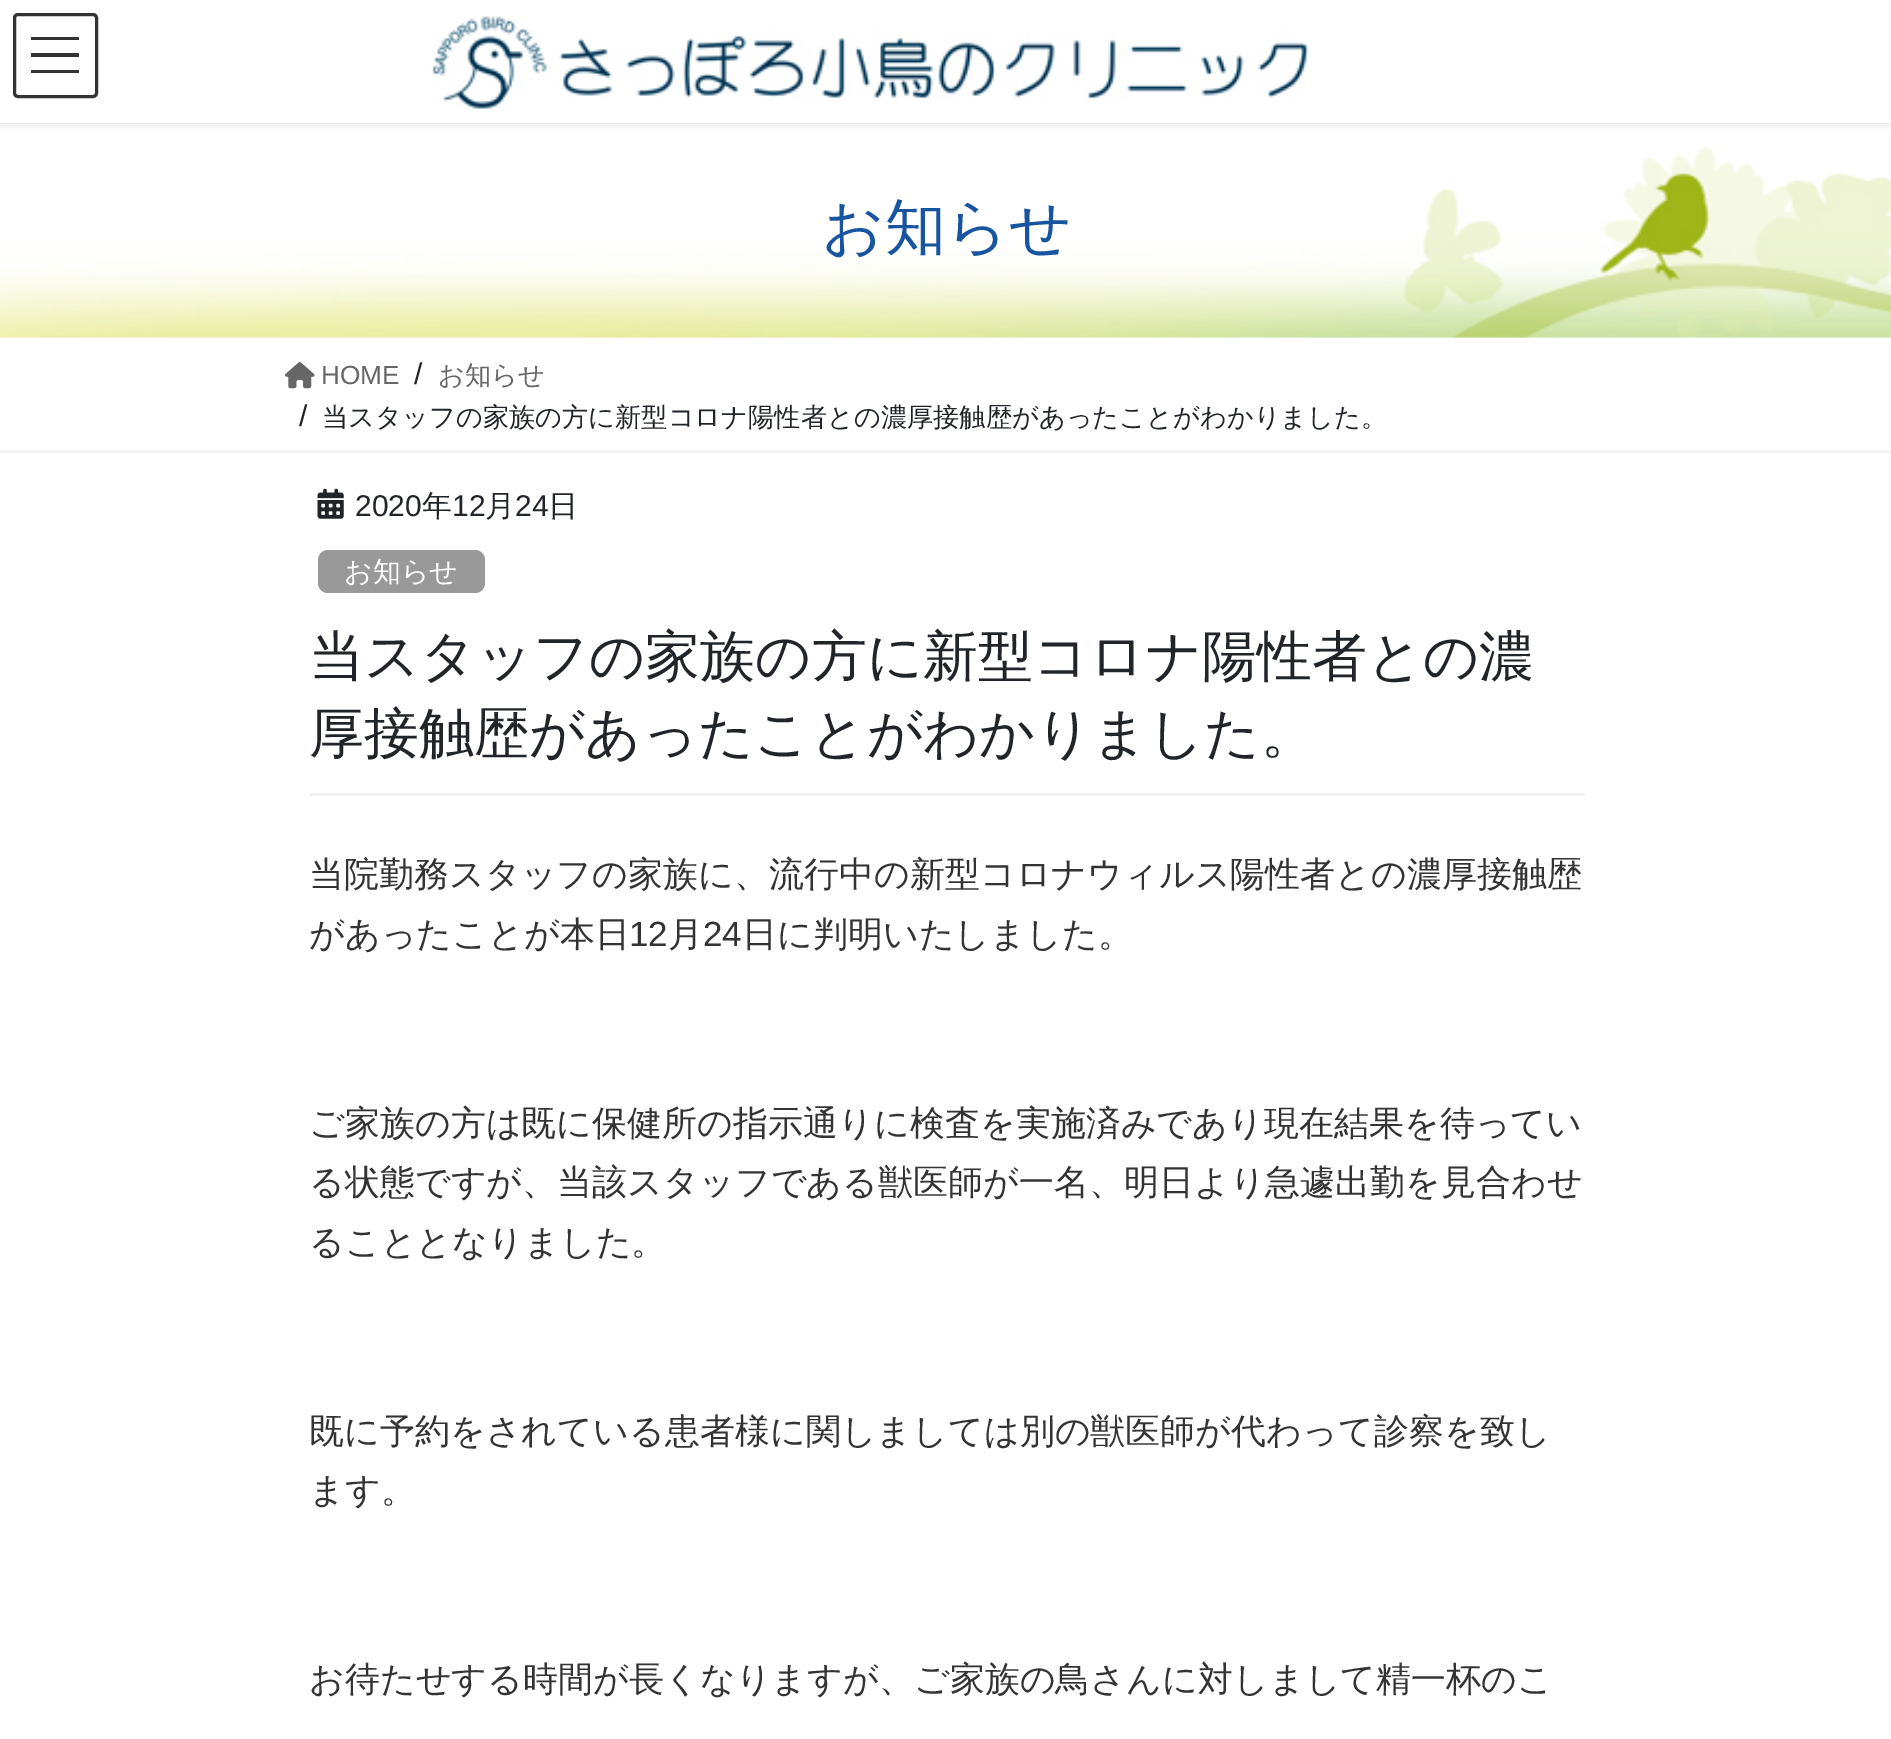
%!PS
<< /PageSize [1891 1739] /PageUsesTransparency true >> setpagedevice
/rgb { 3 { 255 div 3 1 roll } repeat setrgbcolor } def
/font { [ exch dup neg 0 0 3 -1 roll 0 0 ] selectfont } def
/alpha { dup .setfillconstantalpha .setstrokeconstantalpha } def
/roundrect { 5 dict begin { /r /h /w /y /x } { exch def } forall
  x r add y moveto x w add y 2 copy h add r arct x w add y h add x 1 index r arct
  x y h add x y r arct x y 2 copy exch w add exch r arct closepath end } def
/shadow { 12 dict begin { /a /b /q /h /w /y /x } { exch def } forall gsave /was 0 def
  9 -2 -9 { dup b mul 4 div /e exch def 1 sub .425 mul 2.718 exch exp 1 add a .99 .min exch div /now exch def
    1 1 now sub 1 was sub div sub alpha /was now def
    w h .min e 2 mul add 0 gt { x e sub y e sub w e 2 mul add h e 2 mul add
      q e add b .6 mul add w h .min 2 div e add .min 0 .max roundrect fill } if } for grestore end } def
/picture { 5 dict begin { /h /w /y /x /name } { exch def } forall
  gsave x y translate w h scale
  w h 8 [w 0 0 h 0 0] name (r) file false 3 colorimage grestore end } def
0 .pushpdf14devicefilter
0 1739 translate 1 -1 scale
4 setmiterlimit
245 245 245 rgb
0 0 1891 1739 rectfill
(img/2.rgb) 0 123 1891 215 picture
0 0 0 rgb
0 3 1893 122 0 4 0.1 shadow
255 255 255 rgb
0 0 1891 123 rectfill
(img/1.rgb) 431 16 878 94 picture
[
  [31 37 48 3 51 51 51]
  [31 53 48 4 51 51 51]
  [31 70 48 3 51 51 51]
] { aload pop rgb rectfill } forall
3 setlinewidth
14.5 14.5 82 82 3.5 roundrect stroke
255 255 255 rgb
0 338 1891 1401 rectfill
242 242 242 rgb
0 450 1891 3 rectfill
(img/3.rgb) 285 362 30 27 picture
310 793 1275 3 rectfill
(img/4.rgb) 317 488 27 31 picture
153 153 153 rgb
318 550 167 43 10 roundrect fill
/WenQuanYiZenHei-Medium 61.25 font
24 85 160 rgb
822 248 moveto (お知らせ) show
/LiberationSans-Regular 26.25 font
102 102 102 rgb
321 384 moveto (HOME) show
/LiberationSans-Regular 30 font
33 37 41 rgb
414 384 moveto (/) show
/WenQuanYiZenHei-Medium 26.25 font
102 102 102 rgb
438 384 moveto (お知らせ) show
/LiberationSans-Regular 30 font
33 37 41 rgb
299 426 moveto (/) show
/WenQuanYiZenHei-Medium 26.25 font
322 426 moveto (当スタッフの家族の方に新型コロナ陽性者との濃厚接触歴があったことがわかりました。) show
/LiberationSans-Regular 30 font
355 516 moveto (2020) show
/WenQuanYiZenHei-Medium 30 font
422 516 moveto (年) show
/LiberationSans-Regular 30 font
452 516 moveto (12) show
/WenQuanYiZenHei-Medium 30 font
485 516 moveto (月) show
/LiberationSans-Regular 30 font
515 516 moveto (24) show
/WenQuanYiZenHei-Medium 30 font
548 516 moveto (日) show
/WenQuanYiZenHei-Medium 28 font
255 255 255 rgb
344 581 moveto (お知らせ) show
/WenQuanYiZenHei-Medium 55 font
33 37 41 rgb
309 675 moveto (当スタッフの家族の方に新型コロナ陽性者との濃) show
309 752 moveto (厚接触歴があったことがわかりました。) show
/WenQuanYiZenHei-Medium 35 font
51 51 51 rgb
309 886 moveto (当院勤務スタッフの家族に、流行中の新型コロナウィルス陽性者との濃厚接触歴) show
309 946 moveto (があったことが本日) show
/LiberationSans-Regular 35 font
629 946 moveto (12) show
/WenQuanYiZenHei-Medium 35 font
668 946 moveto (月) show
/LiberationSans-Regular 35 font
703 946 moveto (24) show
/WenQuanYiZenHei-Medium 35 font
[
  [(日に判明いたしました。) 742 946]
  [(ご家族の方は既に保健所の指示通りに検査を実施済みであり現在結果を待ってい) 309 1135]
  [(る状態ですが、当該スタッフである獣医師が一名、明日より急遽出勤を見合わせ) 309 1194]
  [(ることとなりました。) 309 1254]
  [(既に予約をされている患者様に関しましては別の獣医師が代わって診察を致し) 309 1443]
  [(ます。) 309 1502]
  [(お待たせする時間が長くなりますが、ご家族の鳥さんに対しまして精一杯のこ) 309 1691]
] { aload pop moveto show } forall
.poppdf14devicefilter showpage
